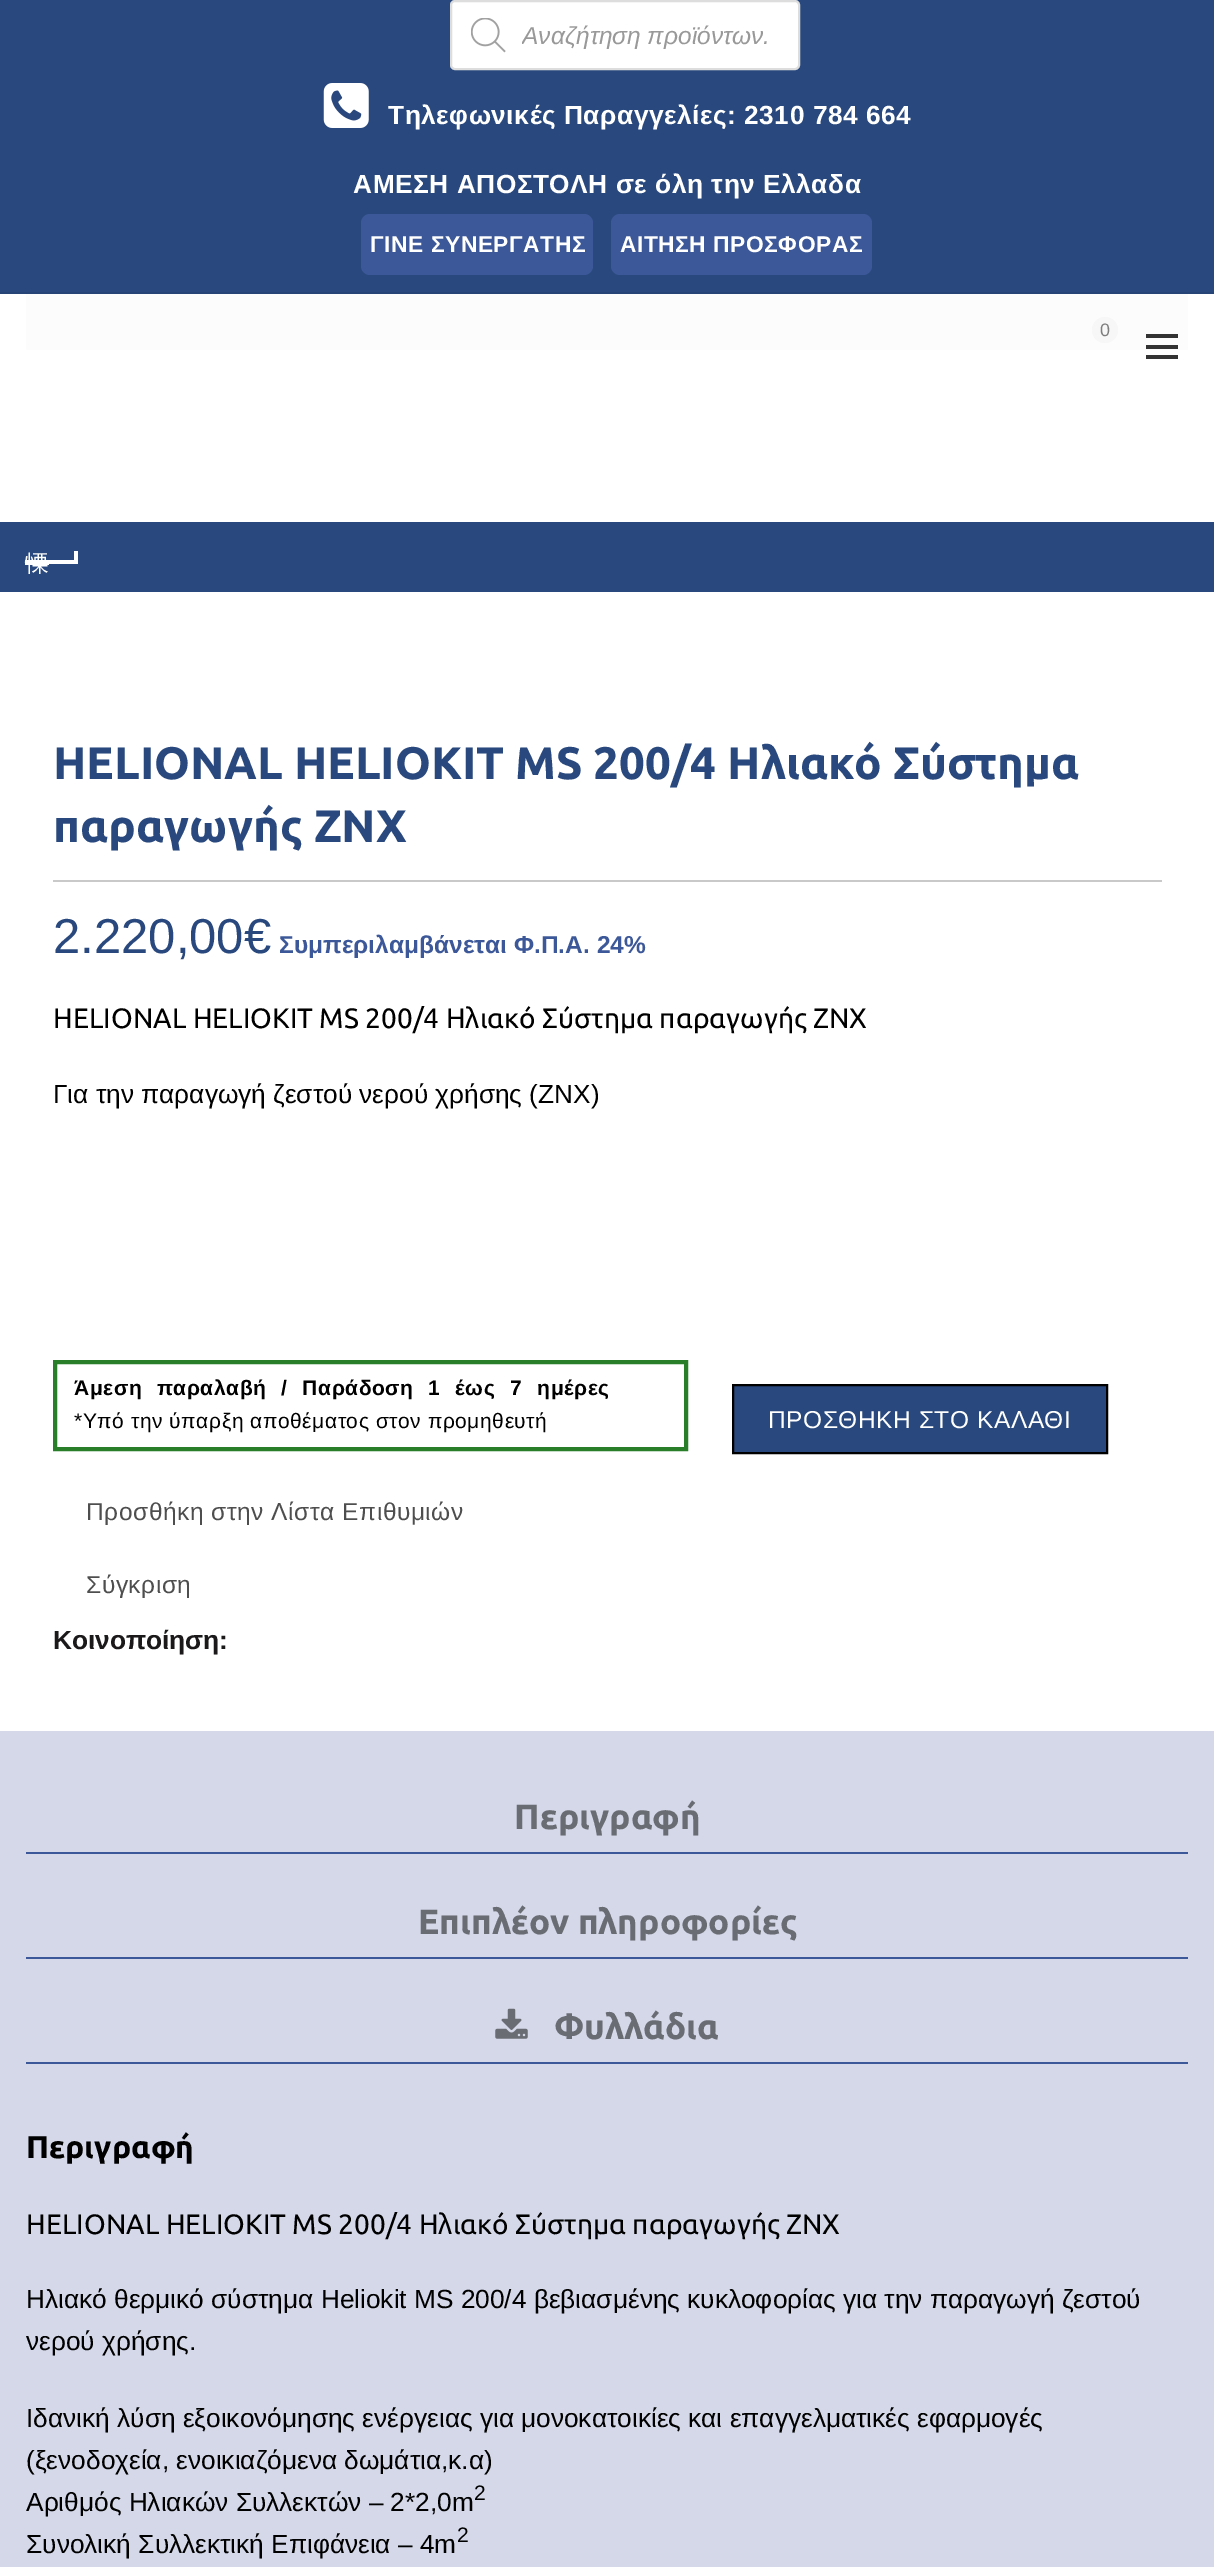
%!PS
<< /PageSize [1214 2567] >> setpagedevice
/rgb { 3 { 255 div 3 1 roll } repeat setrgbcolor } def
/font { [ exch dup neg 0 0 3 -1 roll 0 0 ] selectfont } def
/circle { newpath 0 360 arc closepath } def
/roundrect { 5 dict begin { /r /h /w /y /x } { exch def } forall
  x r add y moveto x w add y 2 copy h add r arct x w add y h add x 1 index r arct
  x y h add x y r arct x y 2 copy exch w add exch r arct closepath end } def
/picture { 5 dict begin { /h /w /y /x /name } { exch def } forall
  gsave x y translate w h scale
  w h 8 [w 0 0 h 0 0] name (r) file false 3 colorimage grestore end } def
0 2567 translate 1 -1 scale
4 setmiterlimit
255 255 255 rgb
0 0 1214 2567 rectfill
[
  [26 294 1162 56 252 252 252]
  [0 0 1214 292 41 72 125]
  [0 292 1214 2 39 68 119]
] { aload pop rgb rectfill } forall
255 255 255 rgb
451 1 348 68 4 roundrect gsave fill grestore
221 221 221 rgb
2 setlinewidth
stroke
(img/1.rgb) 471 18 35 35 picture
(img/2.rgb) 323 83 46 45 picture
60 88 152 rgb
361 214 232 61 9 roundrect fill
611 214 261 61 9 roundrect fill
247 247 247 rgb
1105 330 13 circle fill
[
  [1146 345 32 4 51 51 51]
  [1146 334 32 4 51 51 51]
  [1146 355 32 4 51 51 51]
  [0 522 1214 70 41 72 125]
  [49 560 26 4 255 255 255]
  [25 560 24 5 255 255 255]
  [74 551 4 13 255 255 255]
  [53 880 1109 2 201 201 201]
] { aload pop rgb rectfill } forall
41 126 41 rgb
4 setlinewidth
55 1362 631 87 rectstroke
41 72 125 rgb
733 1385 moveto 1107 1385 lineto 1107 1453 lineto 733 1453 lineto closepath gsave fill grestore
0 0 0 rgb
2 setlinewidth
stroke
[
  [0 1731 1214 836 212 216 232]
  [26 1852 1162 2 60 88 152]
  [26 1957 1162 2 60 88 152]
  [26 2062 1162 2 60 88 152]
] { aload pop rgb rectfill } forall
(img/3.rgb) 495 2008 33 31 picture
gsave
522 21 250 28 rectclip
/LiberationSans-Italic 24.5 font
153 153 153 rgb
522 44 moveto (Αναζήτηση προϊόντων.) show
grestore
/LiberationSans-Bold 26.25 font
255 255 255 rgb
388 124 moveto 0.55 0 (Τηλεφωνικές Παραγγελίες: 2310 784 664) ashow
353 193 moveto 0.55 0 (ΑΜΕΣΗ ΑΠΟΣΤΟΛΗ σε όλη την Ελλαδα) ashow
/LiberationSans-Bold 22.75 font
370 252 moveto 0.55 0 (ΓΙΝΕ ΣΥΝΕΡΓΑΤΗΣ) ashow
620 252 moveto 0.55 0 (ΑΙΤΗΣΗ ΠΡΟΣΦΟΡΑΣ) ashow
/LiberationSans-Regular 18 font
126 126 126 rgb
1100 336 moveto (0) show
/WenQuanYiZenHei-Medium 24.5 font
255 255 255 rgb
24 571 moveto (慄) show
/Ubuntu-Bold 45.5 font
41 72 125 rgb
53 779 moveto (HELIONAL HELIOKIT MS 200/4 Ηλιακό Σύστημα) show
53 842 moveto (παραγωγής ΖΝΧ) show
/LiberationSans-Regular 49 font
53 953 moveto (2.220,00€) show
/LiberationSans-Bold 24.5 font
60 88 152 rgb
279 953 moveto (Συμπεριλαμβάνεται Φ.Π.Α. 24%) show
/Ubuntu-Regular 28 font
0 0 0 rgb
53 1028 moveto (HELIONAL HELIOKIT MS 200/4 Ηλιακό Σύστημα παραγωγής ΖΝΧ) show
/LiberationSans-Regular 26.25 font
53 1103 moveto (Για την παραγωγή ζεστού νερού χρήσης \(ΖΝΧ\)) show
/LiberationSans-Bold 21 font
74 1395 moveto 8.5 0 32 0.55 0 (Άμεση παραλαβή / Παράδoση 1 έως 7 ημέρες) awidthshow
/LiberationSans-Regular 21 font
74 1428 moveto 0.55 0 (*Υπό την ύπαρξη αποθέματος στον προμηθευτή) ashow
/LiberationSans-Regular 24.5 font
255 255 255 rgb
768 1428 moveto 0.55 0 (ΠΡΟΣΘΗΚΗ ΣΤΟ ΚΑΛΑΘΙ) ashow
78 78 78 rgb
86 1520 moveto 0.55 0 (Προσθήκη στην Λίστα Επιθυμιών) ashow
86 1593 moveto 0.55 0 (Σύγκριση) ashow
/LiberationSans-Bold 26.25 font
27 25 25 rgb
53 1649 moveto (Κοινοποίηση:) show
/Ubuntu-Bold 35 font
106 108 116 rgb
[
  [(Περιγραφή) 514 1829]
  [(Επιπλέον πληροφορίες) 418 1934]
  [(Φυλλάδια) 554 2039]
] { aload pop moveto show } forall
/Ubuntu-Bold 31.5 font
0 0 0 rgb
26 2158 moveto (Περιγραφή) show
/Ubuntu-Regular 28 font
26 2234 moveto (HELIONAL HELIOKIT MS 200/4 Ηλιακό Σύστημα παραγωγής ΖΝΧ) show
/LiberationSans-Regular 26.25 font
[
  [(Ηλιακό θερμικό σύστημα Heliokit MS 200/4 βεβιασμένης κυκλοφορίας για την παραγωγή ζεστού) 26 2308]
  [(νερού χρήσης.) 26 2350]
  [(Ιδανική λύση εξοικονόμησης ενέργειας για μονοκατοικίες και επαγγελματικές εφαρμογές) 26 2427]
  [(\(ξενοδοχεία, ενοικιαζόμενα δωμάτια,κ.α\)) 26 2469]
  [(Αριθμός Ηλιακών Συλλεκτών – 2*2,0m) 26 2511]
] { aload pop moveto show } forall
/LiberationSans-Regular 21 font
474 2500 moveto (2) show
/LiberationSans-Regular 26.25 font
26 2553 moveto (Συνολική Συλλεκτική Επιφάνεια – 4m) show
/LiberationSans-Regular 21 font
457 2542 moveto (2) show
showpage
